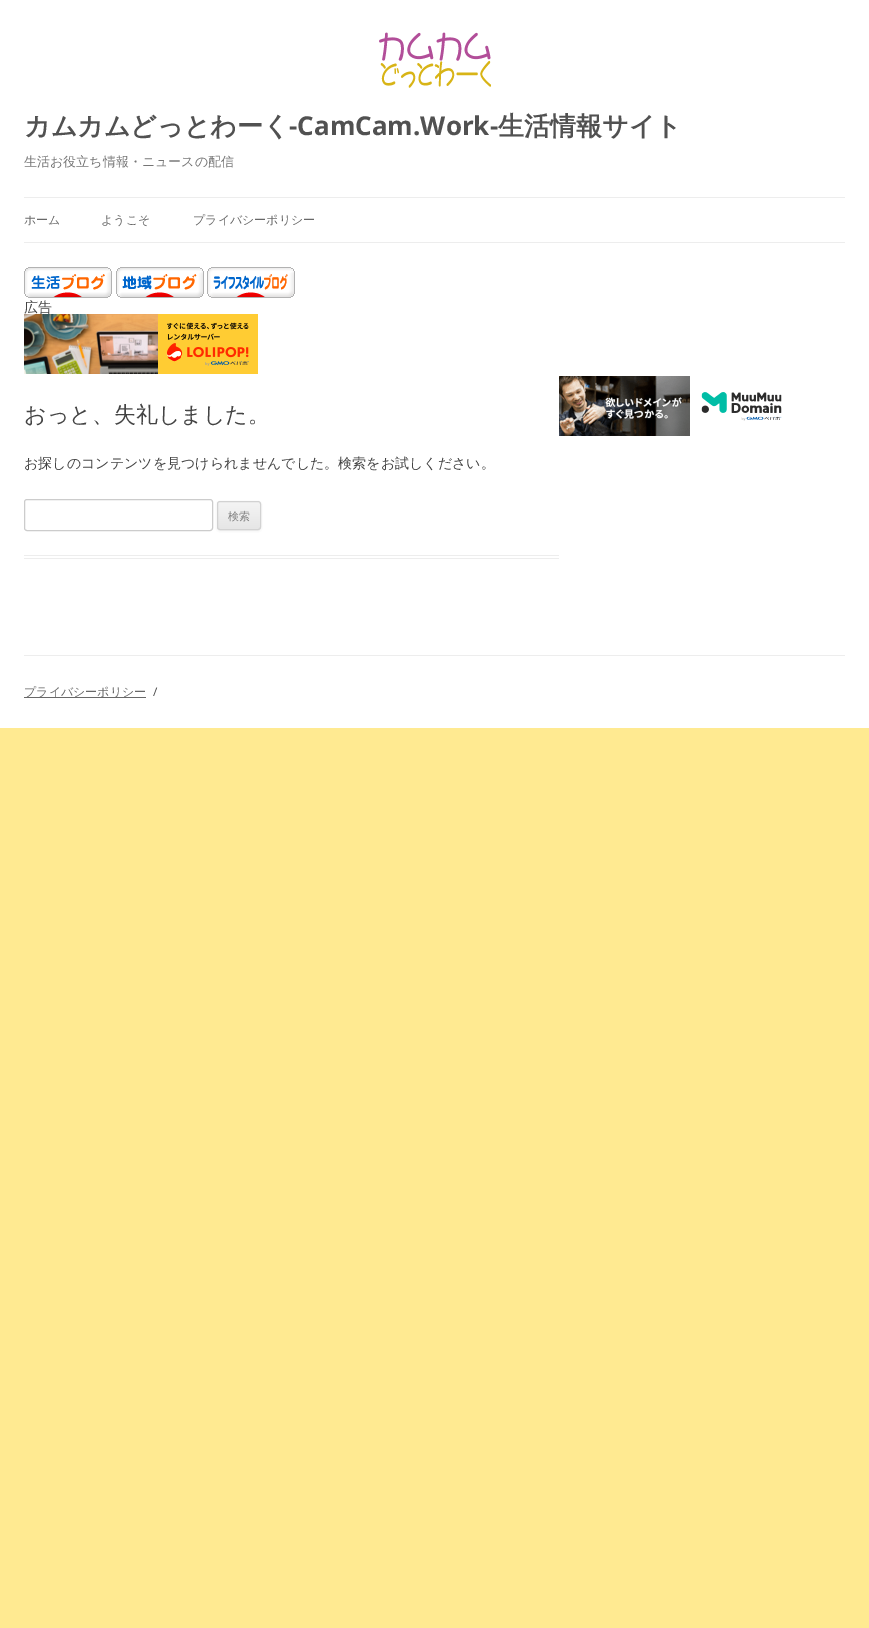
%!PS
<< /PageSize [869 1628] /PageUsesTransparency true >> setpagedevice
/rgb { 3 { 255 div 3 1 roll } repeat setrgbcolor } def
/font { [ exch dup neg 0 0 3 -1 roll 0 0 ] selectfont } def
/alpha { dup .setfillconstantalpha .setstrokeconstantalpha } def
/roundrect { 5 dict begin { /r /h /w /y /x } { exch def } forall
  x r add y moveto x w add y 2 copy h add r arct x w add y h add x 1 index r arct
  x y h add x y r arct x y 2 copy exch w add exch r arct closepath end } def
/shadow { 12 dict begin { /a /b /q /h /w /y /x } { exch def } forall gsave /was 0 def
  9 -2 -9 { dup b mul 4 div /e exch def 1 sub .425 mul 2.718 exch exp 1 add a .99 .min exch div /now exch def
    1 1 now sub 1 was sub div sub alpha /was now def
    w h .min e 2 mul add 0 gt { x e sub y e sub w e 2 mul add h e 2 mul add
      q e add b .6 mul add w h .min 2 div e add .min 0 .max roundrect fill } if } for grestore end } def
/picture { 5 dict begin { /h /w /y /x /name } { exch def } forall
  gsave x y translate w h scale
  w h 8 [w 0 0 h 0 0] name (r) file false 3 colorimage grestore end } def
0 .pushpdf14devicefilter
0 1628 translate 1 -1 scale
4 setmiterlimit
255 234 145 rgb
0 0 869 1628 rectfill
255 255 255 rgb
0 0 869 728 rectfill
(img/1.rgb) 379 32 112 56 picture
237 237 237 rgb
24 197 821 1 rectfill
24 242 821 1 rectfill
(img/2.rgb) 24 267 88 31 picture
(img/3.rgb) 116 267 88 31 picture
(img/4.rgb) 207 267 88 31 picture
(img/5.rgb) 24 314 234 60 picture
24 555 535 1 rectfill
24 558 535 1 rectfill
204 204 204 rgb
24.5 499.5 188 31 2.5 roundrect stroke
64 64 64 rgb
217 502 44 29 3 1 0.1 shadow
gsave
217 501 44 29 3 roundrect clip newpath
gsave 217 502 moveto 261 502 lineto 261 529 lineto 217 529 lineto closepath clip newpath
<< /ShadingType 2 /ColorSpace /DeviceRGB /Coords [239 502 239 529] /Extend [true true] /Function << /FunctionType 2 /Domain [0 1] /C0 [0.957 0.957 0.957] /C1 [0.902 0.902 0.902] /N 1 >> >> shfill grestore
grestore
210 210 210 rgb
217.5 501.5 43 28 2.5 roundrect stroke
(img/6.rgb) 559 376 223 60 picture
237 237 237 rgb
24 655 821 1 rectfill
104 104 104 rgb
24 697 122 1 rectfill
/WenQuanYiZenHei-Bold 26 font
81 81 81 rgb
24 135 moveto (カムカムどっとわーく) show
/OpenSans-Bold 26 font
289 135 moveto (-CamCam.Work-) show
/WenQuanYiZenHei-Bold 26 font
498 135 moveto (生活情報サイト) show
/WenQuanYiZenHei-Medium 13 font
117 117 117 rgb
24 166 moveto (生活お役立ち情報・ニュースの配信) show
/WenQuanYiZenHei-Medium 12 font
104 104 104 rgb
[
  [(ホーム) 24 224]
  [(ようこそ) 101 224]
  [(プライバシーポリシー) 193 224]
] { aload pop moveto show } forall
/WenQuanYiZenHei-Medium 14 font
68 68 68 rgb
24 312 moveto (広告) show
/WenQuanYiZenHei-Medium 22 font
24 422 moveto (おっと、失礼しました。) show
/WenQuanYiZenHei-Medium 14 font
24 468 moveto (お探しのコンテンツを見つけられませんでした。検索をお試しください。) show
/WenQuanYiZenHei-Medium 11 font
124 124 124 rgb
228 520 moveto (検索) show
/WenQuanYiZenHei-Medium 12 font
104 104 104 rgb
24 696 moveto (プライバシーポリシー) show
/OpenSans-Regular 12 font
68 68 68 rgb
153 696 moveto (/) show
.poppdf14devicefilter showpage
